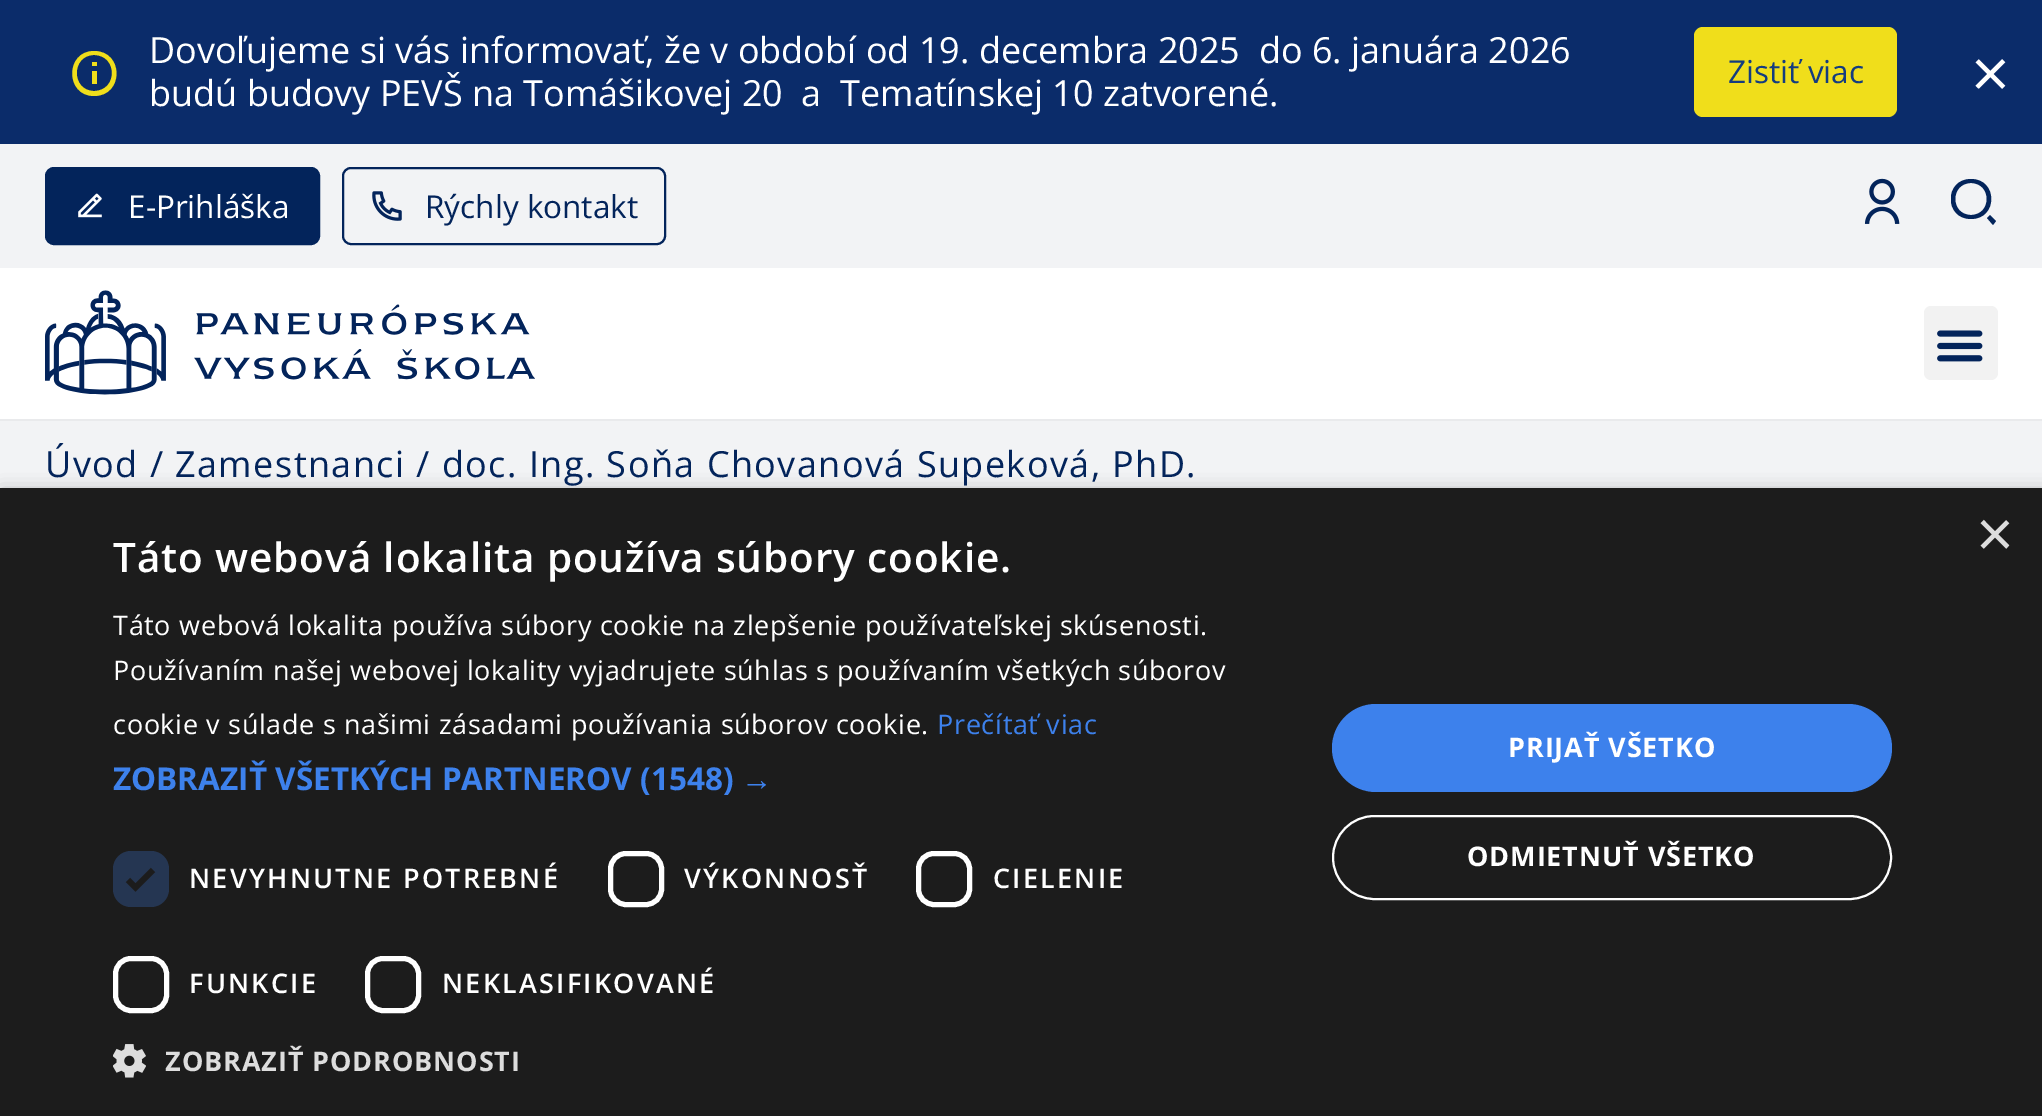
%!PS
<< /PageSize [2042 1116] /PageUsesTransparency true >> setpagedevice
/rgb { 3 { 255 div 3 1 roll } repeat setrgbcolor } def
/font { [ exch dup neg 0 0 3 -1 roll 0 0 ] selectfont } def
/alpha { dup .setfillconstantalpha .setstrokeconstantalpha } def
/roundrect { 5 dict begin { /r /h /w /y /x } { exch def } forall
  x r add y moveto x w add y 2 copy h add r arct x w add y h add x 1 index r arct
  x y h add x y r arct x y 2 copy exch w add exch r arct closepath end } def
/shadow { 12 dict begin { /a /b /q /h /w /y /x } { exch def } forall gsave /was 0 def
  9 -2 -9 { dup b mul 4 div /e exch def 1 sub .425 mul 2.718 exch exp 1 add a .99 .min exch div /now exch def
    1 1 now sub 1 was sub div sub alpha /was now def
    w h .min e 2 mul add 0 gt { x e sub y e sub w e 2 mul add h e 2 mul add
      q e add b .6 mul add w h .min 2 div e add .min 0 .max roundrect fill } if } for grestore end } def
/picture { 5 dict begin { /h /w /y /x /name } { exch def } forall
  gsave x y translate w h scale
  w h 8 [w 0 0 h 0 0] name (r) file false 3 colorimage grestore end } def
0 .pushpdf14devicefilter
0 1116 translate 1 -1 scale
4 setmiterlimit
255 255 255 rgb
0 0 2042 1116 rectfill
11 44 106 rgb
0 0 2042 144 rectfill
240 222 27 rgb
94 96 moveto 65 96 65 51 94 51 curveto 124 51 124 96 94 96 curveto closepath 94 91 moveto 118 91 118 55 94 55 curveto 71 55 71 91 94 91 curveto closepath 92 62 moveto 97 62 lineto 97 66 lineto 92 66 lineto closepath 92 71 moveto 97 71 lineto 97 84 lineto 92 84 lineto closepath fill
1694 27 203 90 9 roundrect fill
242 243 245 rgb
0 144 2042 124 rectfill
3 36 91 rgb
46 168 273 76 8 roundrect gsave fill grestore
2 setlinewidth
stroke
(img/1.rgb) 78 193 24 25 picture
343 168 322 76 8 roundrect stroke
(img/2.rgb) 372 191 30 30 picture
(img/3.rgb) 1864 178 36 46 picture
gsave
1951 178 47 47 rectclip
1971 179 moveto 1998 179 1998 219 1971 219 curveto 1944 219 1944 179 1971 179 curveto closepath 1971 215 moveto 1992 215 1992 183 1971 183 curveto 1950 183 1950 215 1971 215 curveto closepath 1990 215 moveto 1996 221 lineto 1993 225 lineto 1987 218 lineto closepath fill
grestore
233 234 236 rgb
0 419 2042 2 rectfill
(img/4.rgb) 45 290 490 105 picture
242 242 242 rgb
1924 306 74 74 7 roundrect fill
(img/5.rgb) 1937 330 46 32 picture
242 243 245 rgb
0 421 2042 67 rectfill
0 0 0 rgb
2 493 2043 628 0 9 0.35 shadow
28 28 28 rgb
0 488 2042 628 rectfill
37 54 82 rgb
113 851 56 56 18 roundrect fill
28 28 28 rgb
5.9 setlinewidth
128 880 moveto 135.5 887.5 lineto 153 870 lineto stroke
255 255 255 rgb
5 setlinewidth
610.5 853.5 51 51 15.5 roundrect stroke
918.5 853.5 51 51 15.5 roundrect stroke
115.5 958.5 51 52 15.5 roundrect stroke
367.5 958.5 51 52 15.5 roundrect stroke
(img/6.rgb) 113 1044 33 34 picture
61 129 236 rgb
1332 704 560 88 44 roundrect fill
255 255 255 rgb
2 setlinewidth
1333 816 558 83 41.5 roundrect stroke
/OpenSans-Regular 36 font
149 63 moveto (Dovoľujeme si vás informovať, že v období od 19. decembra 2025  do 6. januára 2026) show
149 106 moveto (budú budovy PEVŠ na Tomášikovej 20  a  Tematínskej 10 zatvorené.) show
/OpenSans-Regular 31.5 font
20 60 127 rgb
1728 83 moveto (Zistiť viac) show
/OpenSans-Regular 68 font
255 255 255 rgb
1971 98 moveto (×) show
/OpenSans-Regular 31.5 font
128 218 moveto (E-Prihláška) show
3 36 91 rgb
425 218 moveto (Rýchly kontakt) show
/OpenSans-Regular 36 font
45 477 moveto 1.45 0 (Úvod / Zamestnanci / doc. Ing. Soňa Chovanová Supeková, PhD.) ashow
/LiberationSans-Regular 65 font
221 221 221 rgb
1976 556 moveto (×) show
/OpenSans-SemiBold 40.5 font
255 255 255 rgb
113 572 moveto 0.9 0 (Táto webová lokalita používa súbory cookie.) ashow
/OpenSans-Regular 27 font
113 635 moveto 0.67 0 (Táto webová lokalita používa súbory cookie na zlepšenie používateľskej skúsenosti.) ashow
113 680 moveto 0.67 0 (Používaním našej webovej lokality vyjadrujete súhlas s používaním všetkých súborov) ashow
113 734 moveto 0.67 0 (cookie v súlade s našimi zásadami používania súborov cookie.) ashow
61 129 236 rgb
937 734 moveto 0.67 0 (Prečítať viac) ashow
/OpenSans-Bold 31.5 font
113 790 moveto (ZOBRAZIŤ VŠETKÝCH PARTNEROV \(1548\)) show
/LiberationSans-Bold 31.5 font
741 790 moveto (→) show
/OpenSans-SemiBold 27 font
255 255 255 rgb
189 888 moveto 2.25 0 (NEVYHNUTNE POTREBNÉ) ashow
684 888 moveto 2.25 0 (VÝKONNOSŤ) ashow
993 888 moveto 2.25 0 (CIELENIE) ashow
189 993 moveto 2.25 0 (FUNKCIE) ashow
442 993 moveto 2.25 0 (NEKLASIFIKOVANÉ) ashow
/OpenSans-Bold 27 font
221 221 221 rgb
165 1071 moveto 0.9 0 (ZOBRAZIŤ PODROBNOSTI) ashow
255 255 255 rgb
1508 757 moveto 0.9 0 (PRIJAŤ VŠETKO) ashow
1467 866 moveto 0.9 0 (ODMIETNUŤ VŠETKO) ashow
.poppdf14devicefilter showpage
